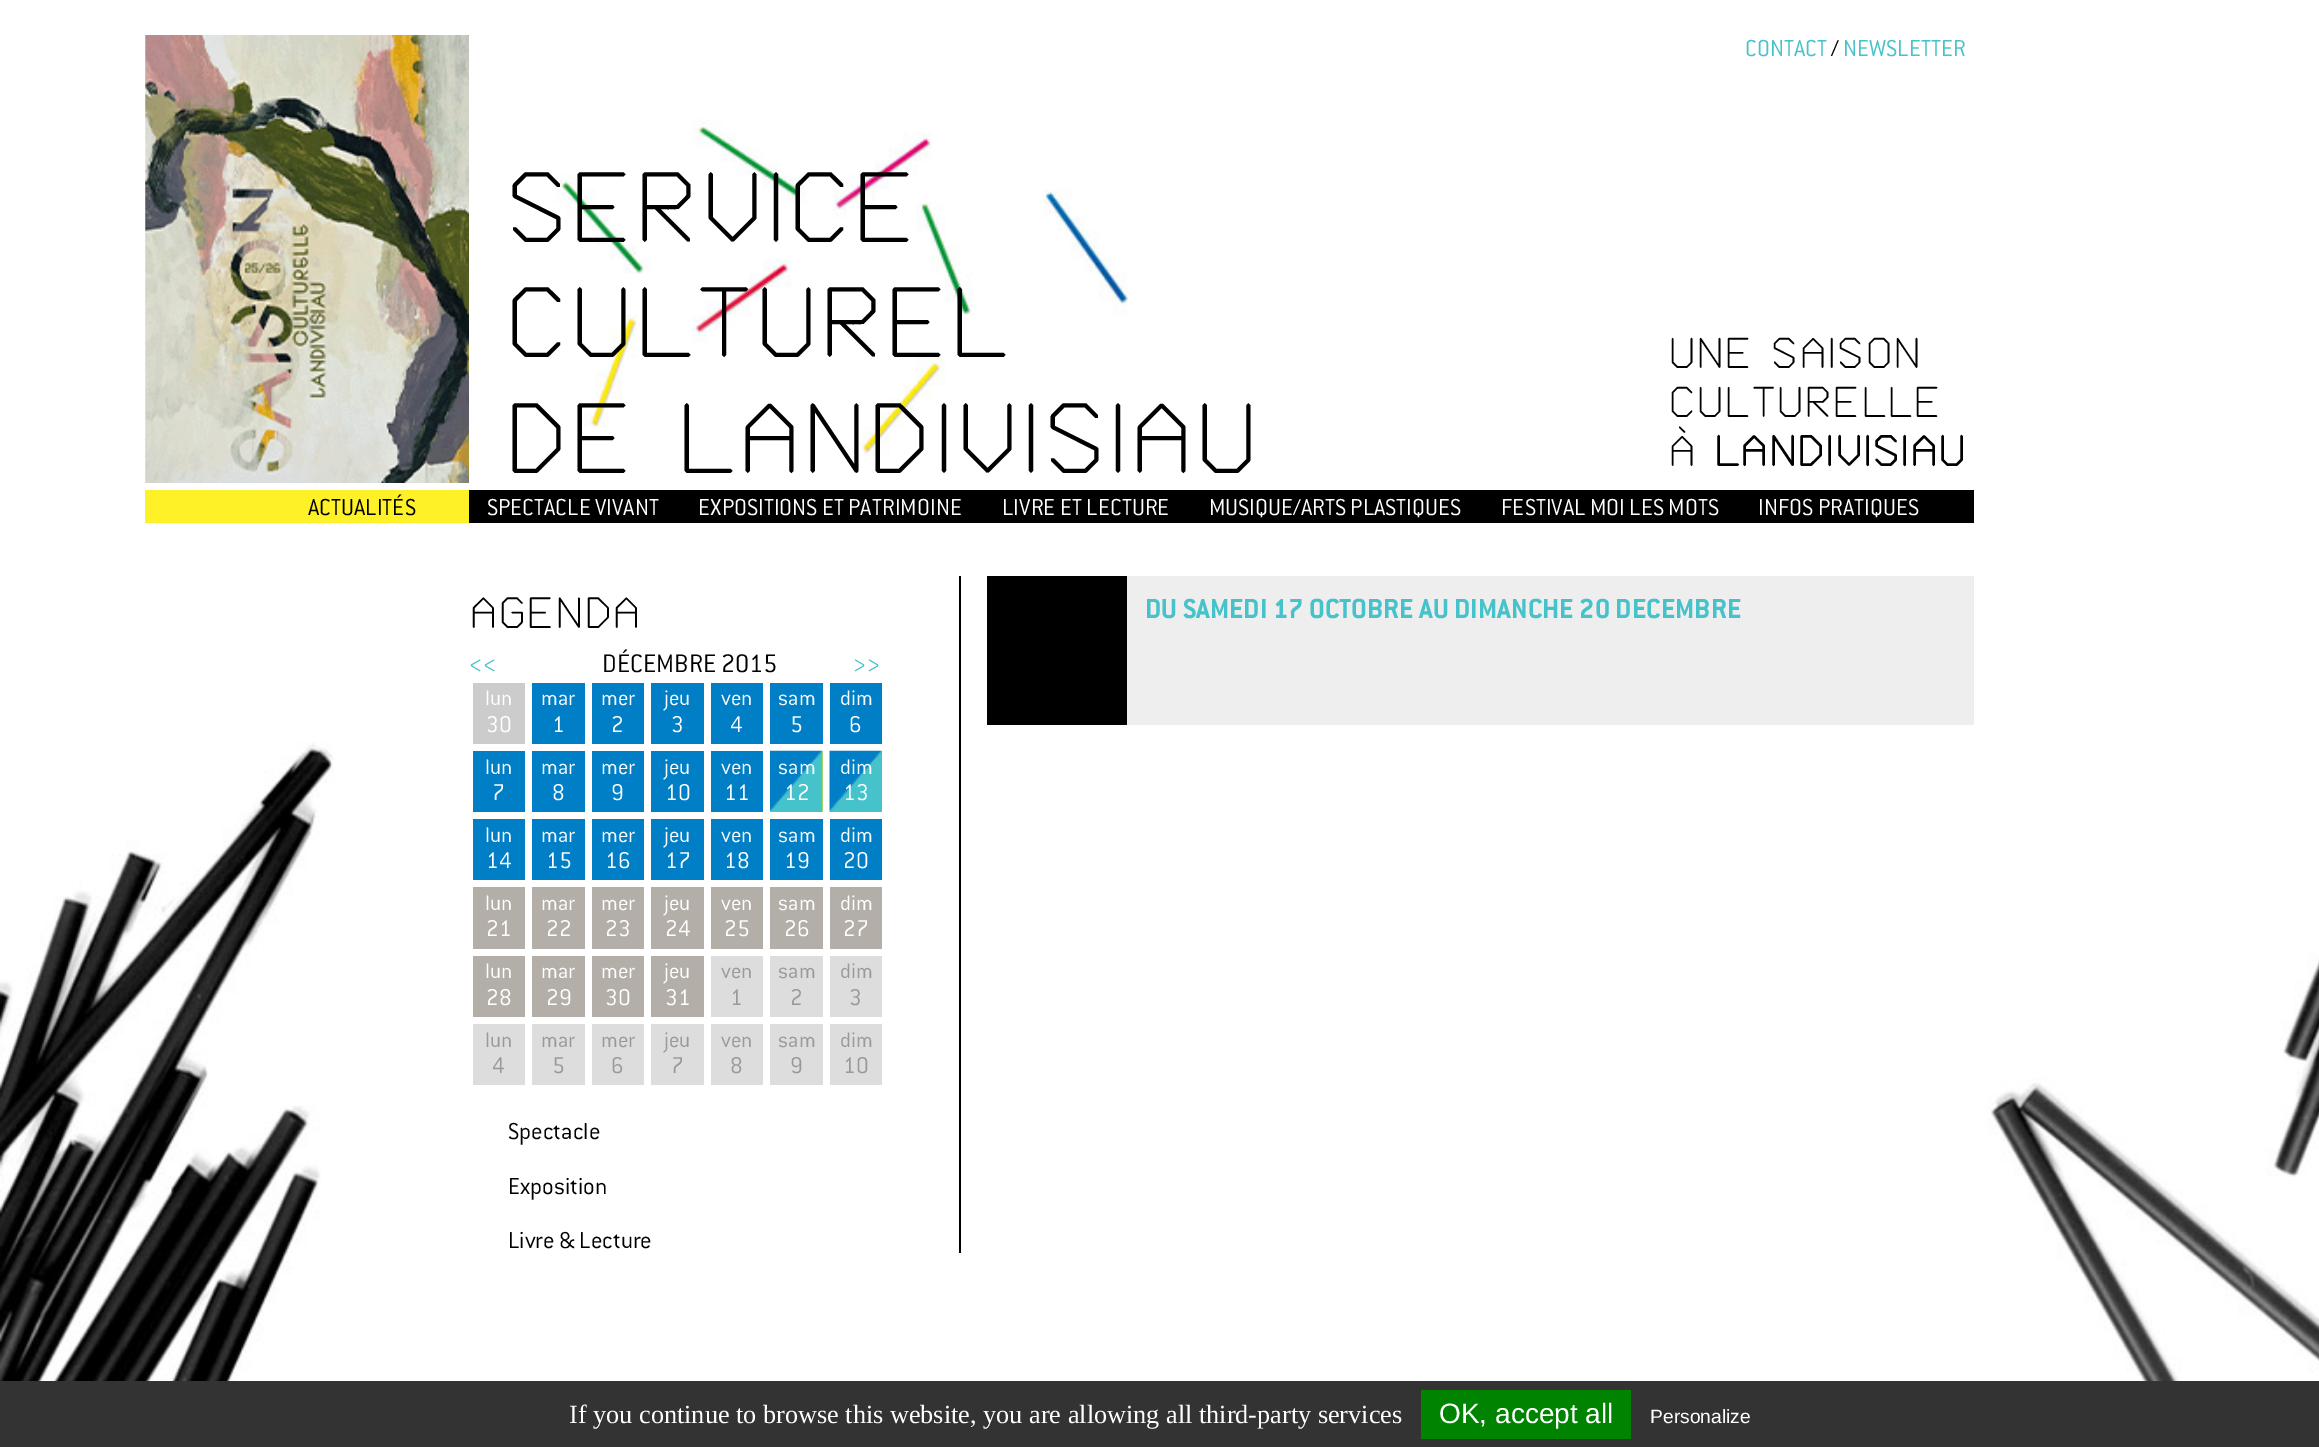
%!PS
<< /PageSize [2319 1447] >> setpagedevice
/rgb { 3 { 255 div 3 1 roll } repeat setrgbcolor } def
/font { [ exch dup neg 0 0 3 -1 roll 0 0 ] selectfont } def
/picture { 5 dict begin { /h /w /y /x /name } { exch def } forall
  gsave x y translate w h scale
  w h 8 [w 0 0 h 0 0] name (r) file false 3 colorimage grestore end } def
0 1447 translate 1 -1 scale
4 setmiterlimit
255 255 255 rgb
0 0 2319 1447 rectfill
(img/1.rgb) 0 742 2319 639 picture
(img/2.rgb) 145 35 324 448 picture
(img/3.rgb) 553 119 575 337 picture
[
  [145 490 324 33 254 241 40]
  [469 490 1505 33 0 0 0]
  [959 576 2 677 0 0 0]
  [473 683 52 61 204 204 204]
  [532 683 53 61 0 127 198]
  [592 683 52 61 0 127 198]
  [651 683 53 61 0 127 198]
  [711 683 52 61 0 127 198]
  [770 683 53 61 0 127 198]
  [830 683 52 61 0 127 198]
  [473 751 52 61 0 127 198]
  [532 751 53 61 0 127 198]
  [592 751 52 61 0 127 198]
  [651 751 53 61 0 127 198]
  [711 751 52 61 0 127 198]
  [822 751 1 61 255 240 0]
] { aload pop rgb rectfill } forall
(img/4.rgb) 770 750 53 62 picture
(img/5.rgb) 829 750 53 62 picture
[
  [473 819 52 61 0 127 198]
  [532 819 53 61 0 127 198]
  [592 819 52 61 0 127 198]
  [651 819 53 61 0 127 198]
  [711 819 52 61 0 127 198]
  [770 819 53 61 0 127 198]
  [830 819 52 61 0 127 198]
  [473 887 52 62 180 174 168]
  [532 887 53 62 180 174 168]
  [592 887 52 62 180 174 168]
  [651 887 53 62 180 174 168]
  [711 887 52 62 180 174 168]
  [770 887 53 62 180 174 168]
  [830 887 52 62 180 174 168]
  [473 956 52 61 180 174 168]
  [532 956 53 61 180 174 168]
  [592 956 52 61 180 174 168]
  [651 956 53 61 180 174 168]
  [711 956 52 61 221 221 221]
  [770 956 53 61 221 221 221]
  [830 956 52 61 221 221 221]
  [473 1024 52 61 221 221 221]
  [532 1024 53 61 221 221 221]
  [592 1024 52 61 221 221 221]
  [651 1024 53 61 221 221 221]
  [711 1024 52 61 221 221 221]
  [770 1024 53 61 221 221 221]
  [830 1024 52 61 221 221 221]
  [987 576 140 149 0 0 0]
  [1127 576 847 149 238 238 238]
  [0 1381 2319 66 51 51 51]
  [1421 1390 210 49 0 131 0]
] { aload pop rgb rectfill } forall
/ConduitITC-Light 25.25 font
69 194 202 rgb
1745 56 moveto (CONTACT) show
0 0 0 rgb
1831 56 moveto (/) show
69 194 202 rgb
1843 56 moveto (NEWSLETTER) show
/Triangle-Regular 103.5 font
0 0 0 rgb
[
  [(SERVICE) 504 242]
  [(CULTUREL) 504 357]
  [(DE LANDIVISIAU) 504 473]
] { aload pop moveto show } forall
/Triangle-Regular 44.75 font
[
  [(UNE SAISON) 1668 368]
  [(CULTURELLE) 1668 417]
  [(À) 1668 466]
] { aload pop moveto show } forall
/Triangle-Bold 44.75 font
1714 466 moveto (LANDIVISIAU) show
/ConduitITC-Light 25.25 font
308 515 moveto (ACTUALITÉS) show
255 255 255 rgb
[
  [(SPECTACLE VIVANT) 487 515]
  [(EXPOSITIONS ET PATRIMOINE) 698 515]
  [(LIVRE ET LECTURE) 1002 515]
  [(MUSIQUE/ARTS PLASTIQUES) 1209 515]
  [(FESTIVAL MOI LES MOTS) 1501 515]
  [(INFOS PRATIQUES) 1758 515]
] { aload pop moveto show } forall
/Triangle-Regular 45.5 font
0 0 0 rgb
469 628 moveto (AGENDA) show
/ConduitITC-Light 27.75 font
69 194 202 rgb
469 672 moveto (<<) show
0 0 0 rgb
602 672 moveto (DÉCEMBRE 2015) show
69 194 202 rgb
852 672 moveto (>>) show
/ConduitITC-Light 23 font
255 255 255 rgb
485 705 moveto (lun) show
/ConduitITC-Light 25 font
486 732 moveto (30) show
/ConduitITC-Light 23 font
541 705 moveto (mar) show
/ConduitITC-Light 25 font
552 732 moveto (1) show
/ConduitITC-Light 23 font
601 705 moveto (mer) show
/ConduitITC-Light 25 font
611 732 moveto (2) show
/ConduitITC-Light 23 font
664 705 moveto (jeu) show
/ConduitITC-Light 25 font
671 732 moveto (3) show
/ConduitITC-Light 23 font
721 705 moveto (ven) show
/ConduitITC-Light 25 font
730 732 moveto (4) show
/ConduitITC-Light 23 font
778 705 moveto (sam) show
/ConduitITC-Light 25 font
790 732 moveto (5) show
/ConduitITC-Light 23 font
840 705 moveto (dim) show
/ConduitITC-Light 25 font
849 732 moveto (6) show
/ConduitITC-Light 23 font
485 774 moveto (lun) show
/ConduitITC-Light 25 font
492 800 moveto (7) show
/ConduitITC-Light 23 font
541 774 moveto (mar) show
/ConduitITC-Light 25 font
552 800 moveto (8) show
/ConduitITC-Light 23 font
601 774 moveto (mer) show
/ConduitITC-Light 25 font
611 800 moveto (9) show
/ConduitITC-Light 23 font
664 774 moveto (jeu) show
/ConduitITC-Light 25 font
665 800 moveto (10) show
/ConduitITC-Light 23 font
721 774 moveto (ven) show
/ConduitITC-Light 25 font
724 800 moveto (11) show
/ConduitITC-Light 23 font
778 774 moveto (sam) show
/ConduitITC-Light 25 font
784 800 moveto (12) show
/ConduitITC-Light 23 font
840 774 moveto (dim) show
/ConduitITC-Light 25 font
843 800 moveto (13) show
/ConduitITC-Light 23 font
485 842 moveto (lun) show
/ConduitITC-Light 25 font
486 868 moveto (14) show
/ConduitITC-Light 23 font
541 842 moveto (mar) show
/ConduitITC-Light 25 font
546 868 moveto (15) show
/ConduitITC-Light 23 font
601 842 moveto (mer) show
/ConduitITC-Light 25 font
605 868 moveto (16) show
/ConduitITC-Light 23 font
664 842 moveto (jeu) show
/ConduitITC-Light 25 font
665 868 moveto (17) show
/ConduitITC-Light 23 font
721 842 moveto (ven) show
/ConduitITC-Light 25 font
724 868 moveto (18) show
/ConduitITC-Light 23 font
778 842 moveto (sam) show
/ConduitITC-Light 25 font
784 868 moveto (19) show
/ConduitITC-Light 23 font
840 842 moveto (dim) show
/ConduitITC-Light 25 font
843 868 moveto (20) show
/ConduitITC-Light 23 font
485 910 moveto (lun) show
/ConduitITC-Light 25 font
486 936 moveto (21) show
/ConduitITC-Light 23 font
541 910 moveto (mar) show
/ConduitITC-Light 25 font
546 936 moveto (22) show
/ConduitITC-Light 23 font
601 910 moveto (mer) show
/ConduitITC-Light 25 font
605 936 moveto (23) show
/ConduitITC-Light 23 font
664 910 moveto (jeu) show
/ConduitITC-Light 25 font
665 936 moveto (24) show
/ConduitITC-Light 23 font
721 910 moveto (ven) show
/ConduitITC-Light 25 font
724 936 moveto (25) show
/ConduitITC-Light 23 font
778 910 moveto (sam) show
/ConduitITC-Light 25 font
784 936 moveto (26) show
/ConduitITC-Light 23 font
840 910 moveto (dim) show
/ConduitITC-Light 25 font
843 936 moveto (27) show
/ConduitITC-Light 23 font
485 978 moveto (lun) show
/ConduitITC-Light 25 font
486 1005 moveto (28) show
/ConduitITC-Light 23 font
541 978 moveto (mar) show
/ConduitITC-Light 25 font
546 1005 moveto (29) show
/ConduitITC-Light 23 font
601 978 moveto (mer) show
/ConduitITC-Light 25 font
605 1005 moveto (30) show
/ConduitITC-Light 23 font
664 978 moveto (jeu) show
/ConduitITC-Light 25 font
665 1005 moveto (31) show
/ConduitITC-Light 23 font
153 153 153 rgb
721 978 moveto (ven) show
/ConduitITC-Light 25 font
730 1005 moveto (1) show
/ConduitITC-Light 23 font
778 978 moveto (sam) show
/ConduitITC-Light 25 font
790 1005 moveto (2) show
/ConduitITC-Light 23 font
840 978 moveto (dim) show
/ConduitITC-Light 25 font
849 1005 moveto (3) show
/ConduitITC-Light 23 font
485 1047 moveto (lun) show
/ConduitITC-Light 25 font
492 1073 moveto (4) show
/ConduitITC-Light 23 font
541 1047 moveto (mar) show
/ConduitITC-Light 25 font
552 1073 moveto (5) show
/ConduitITC-Light 23 font
601 1047 moveto (mer) show
/ConduitITC-Light 25 font
611 1073 moveto (6) show
/ConduitITC-Light 23 font
664 1047 moveto (jeu) show
/ConduitITC-Light 25 font
671 1073 moveto (7) show
/ConduitITC-Light 23 font
721 1047 moveto (ven) show
/ConduitITC-Light 25 font
730 1073 moveto (8) show
/ConduitITC-Light 23 font
778 1047 moveto (sam) show
/ConduitITC-Light 25 font
790 1073 moveto (9) show
/ConduitITC-Light 23 font
840 1047 moveto (dim) show
/ConduitITC-Light 25 font
843 1073 moveto (10) show
/ConduitITC-Light 25.25 font
0 0 0 rgb
[
  [(Spectacle) 508 1139]
  [(Exposition) 508 1194]
  [(Livre & Lecture) 508 1248]
] { aload pop moveto show } forall
/ConduitITC-Bold 30.25 font
69 194 202 rgb
1145 618 moveto (DU SAMEDI 17 OCTOBRE AU DIMANCHE 20 DECEMBRE) show
/LiberationSerif-Regular 26.25 font
255 255 255 rgb
569 1423 moveto (If you continue to browse this website, you are allowing all third-party services) show
/LiberationSans-Regular 28 font
1439 1423 moveto (OK, accept all) show
/LiberationSans-Regular 19.25 font
1650 1423 moveto (Personalize) show
showpage
